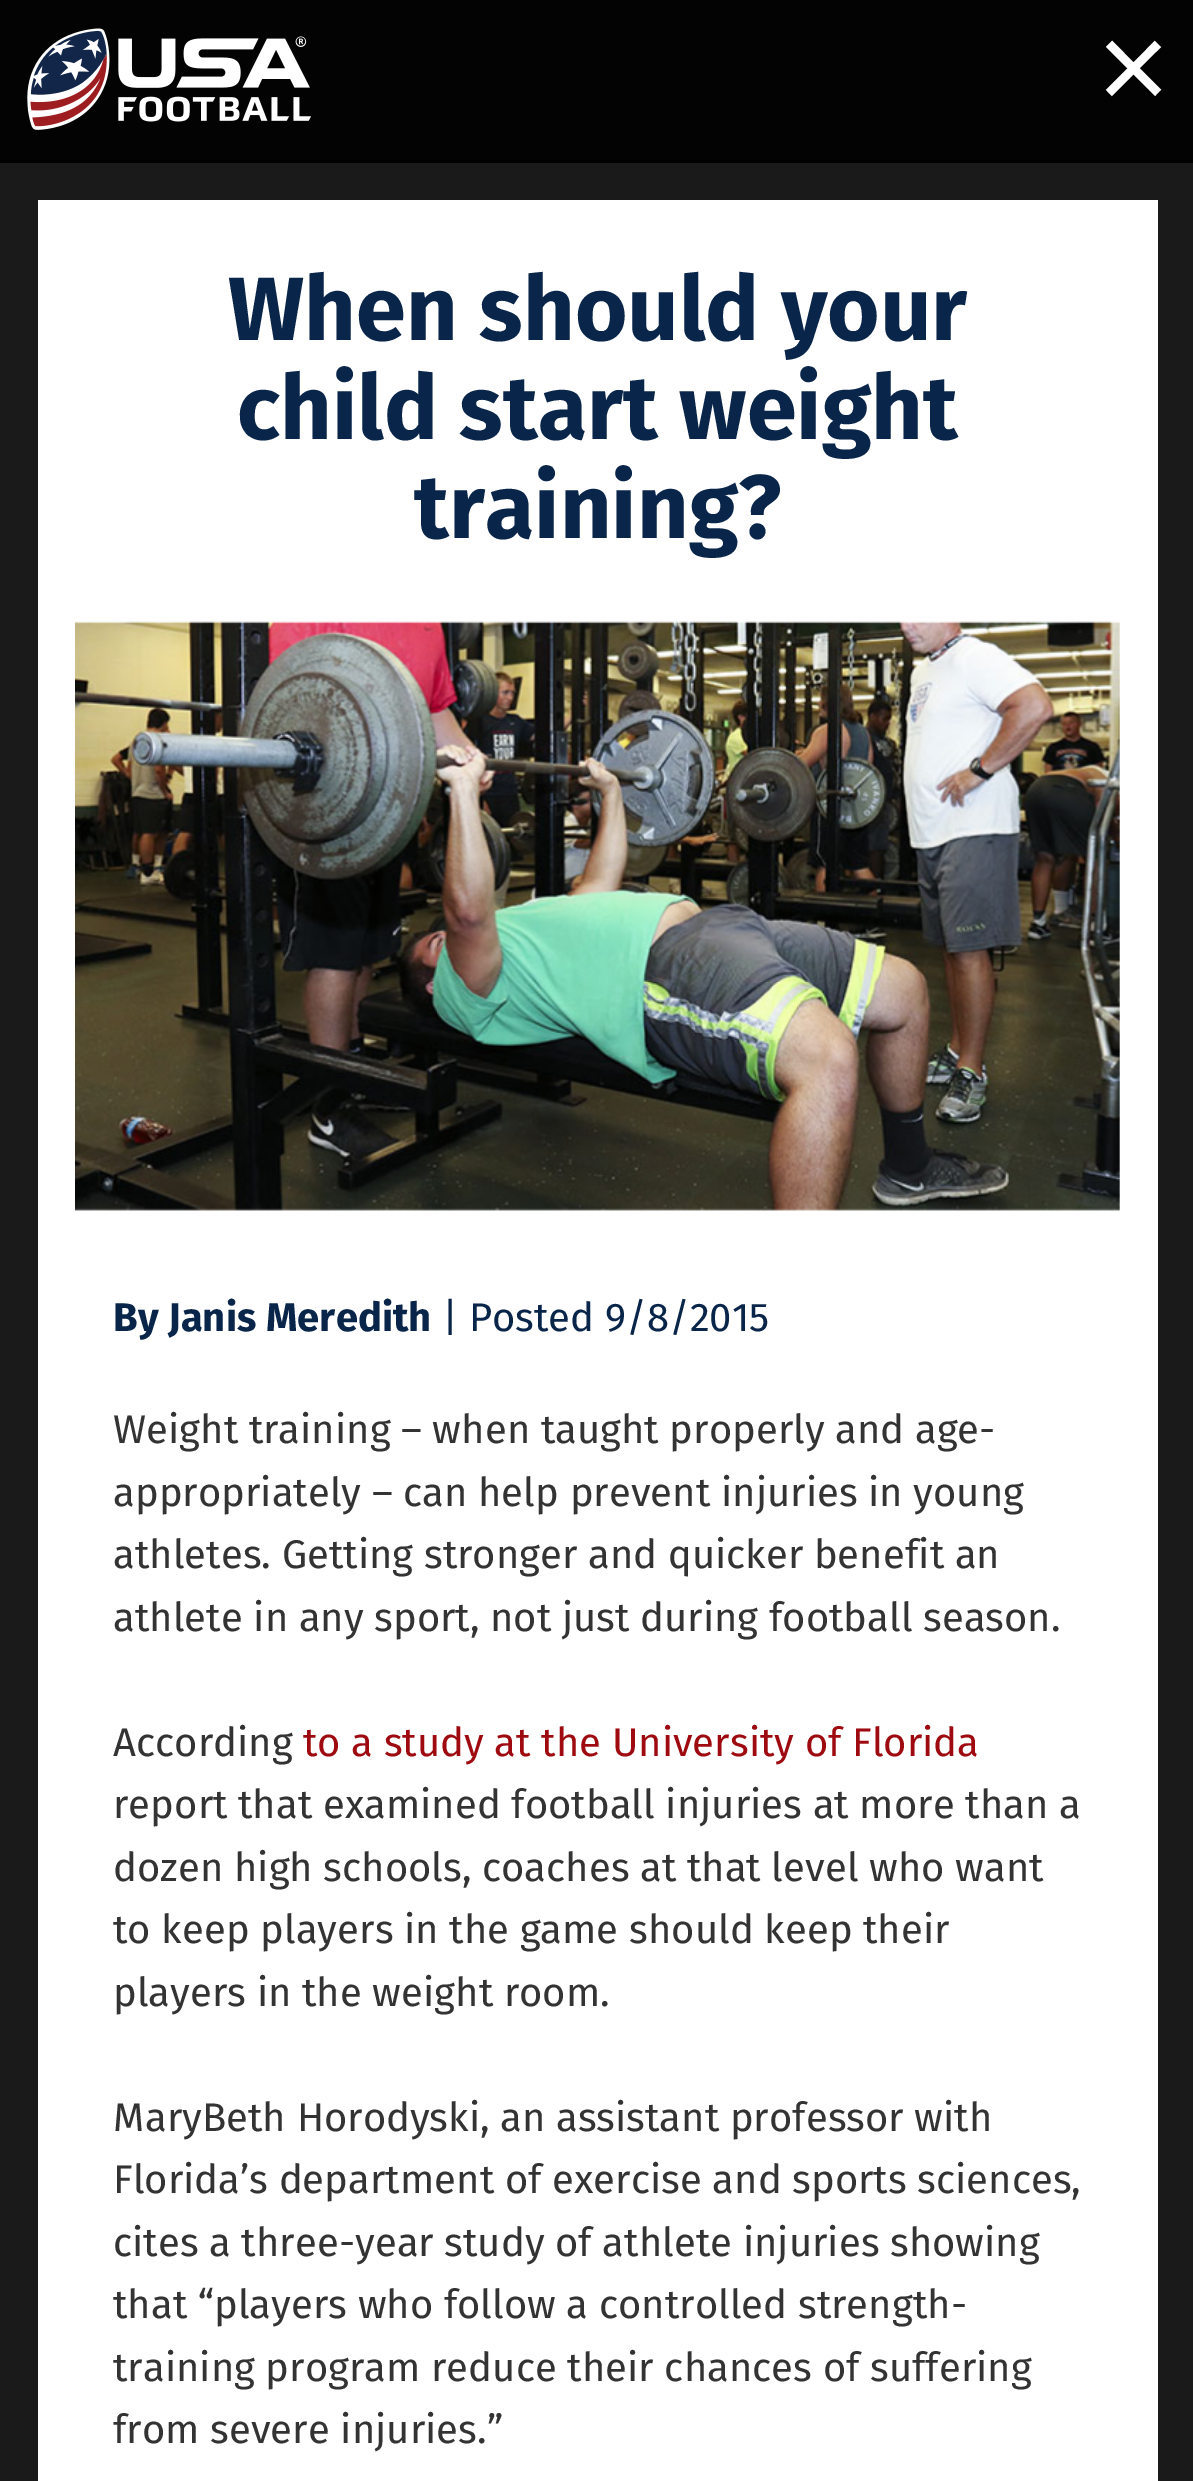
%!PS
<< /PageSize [1193 2481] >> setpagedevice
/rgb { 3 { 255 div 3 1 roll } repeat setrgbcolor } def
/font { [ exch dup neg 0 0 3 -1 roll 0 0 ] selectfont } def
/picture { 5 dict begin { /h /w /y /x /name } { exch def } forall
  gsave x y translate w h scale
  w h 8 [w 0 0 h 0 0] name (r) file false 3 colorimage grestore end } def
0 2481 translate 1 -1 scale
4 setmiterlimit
26 26 26 rgb
0 0 1193 2481 rectfill
3 3 3 rgb
0 0 1193 160 rectfill
0 0 0 rgb
0 160 1193 3 rectfill
(img/1.rgb) 27 28 284 102 picture
255 255 255 rgb
38 200 1120 2281 rectfill
(img/2.rgb) 75 621 1045 590 picture
/LiberationSans-Regular 125 font
1097 110 moveto (×) show
/FiraSans-Bold 90 font
9 37 73 rgb
[
  [(When should your) 228 340]
  [(child start weight) 237 439]
  [(training?) 414 538]
] { aload pop moveto show } forall
/FiraSans-Bold 40 font
113 1331 moveto (By Janis Meredith) show
/FiraSans-Regular 40 font
442 1331 moveto (| Posted 9/8/2015) show
51 51 51 rgb
[
  [(Weight training – when taught properly and age-) 113 1443]
  [(appropriately – can help prevent injuries in young) 113 1506]
  [(athletes. Getting stronger and quicker benefit an) 113 1568]
  [(athlete in any sport, not just during football season.) 113 1631]
  [(According) 113 1756]
] { aload pop moveto show } forall
158 10 15 rgb
303 1756 moveto (to a study at the University of Florida) show
51 51 51 rgb
[
  [(report that examined football injuries at more than a) 113 1818]
  [(dozen high schools, coaches at that level who want) 113 1881]
  [(to keep players in the game should keep their) 113 1943]
  [(players in the weight room.) 113 2006]
  [(MaryBeth Horodyski, an assistant professor with) 113 2131]
  [(Florida’s department of exercise and sports sciences,) 113 2193]
  [(cites a three-year study of athlete injuries showing) 113 2256]
  [(that “players who follow a controlled strength-) 113 2318]
  [(training program reduce their chances of suffering) 113 2381]
  [(from severe injuries.”) 113 2443]
] { aload pop moveto show } forall
showpage
